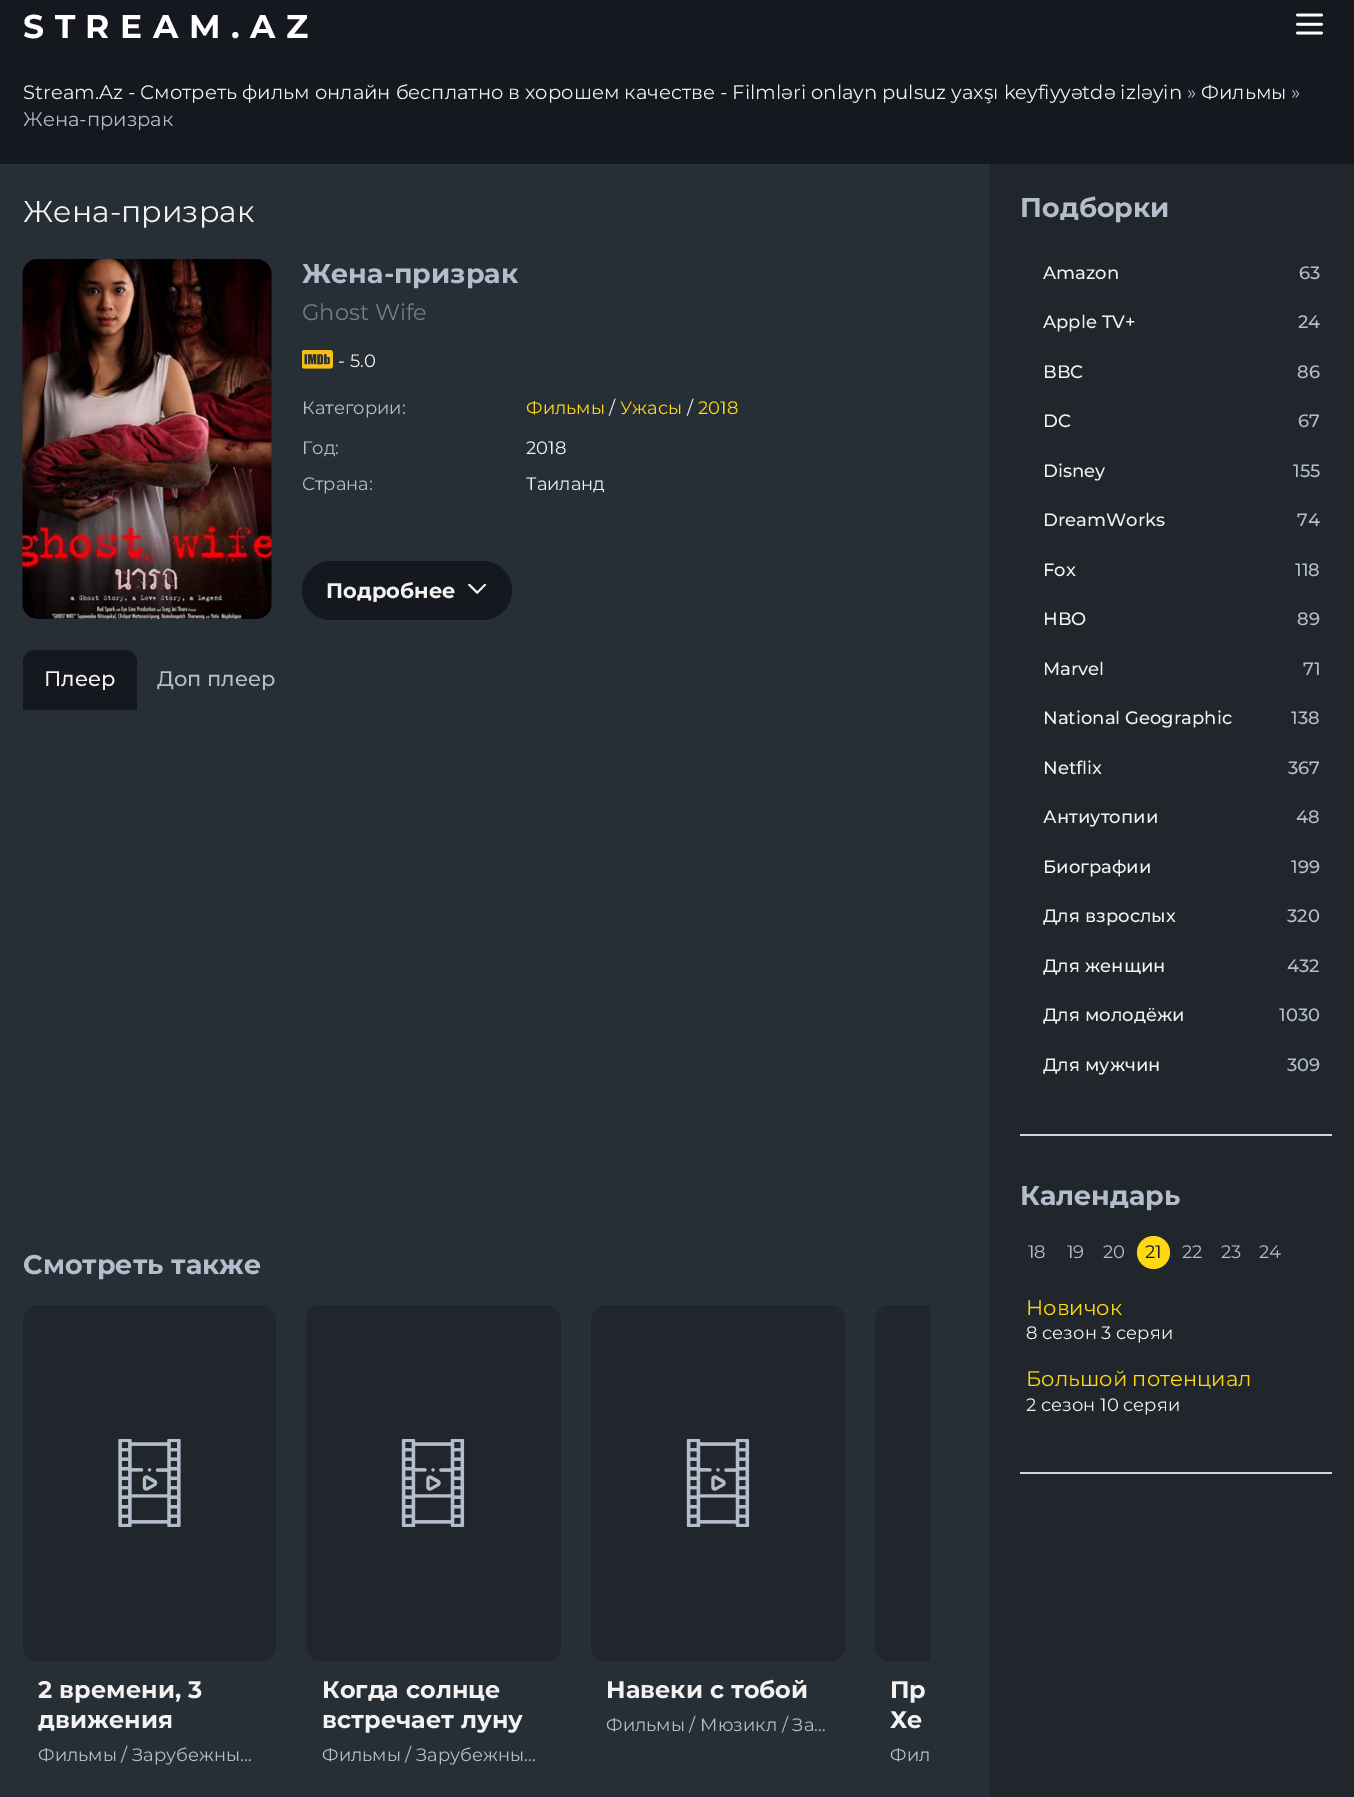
%!PS
<< /PageSize [1354 1797] >> setpagedevice
/rgb { 3 { 255 div 3 1 roll } repeat setrgbcolor } def
/font { [ exch dup neg 0 0 3 -1 roll 0 0 ] selectfont } def
/circle { newpath 0 360 arc closepath } def
/roundrect { 5 dict begin { /r /h /w /y /x } { exch def } forall
  x r add y moveto x w add y 2 copy h add r arct x w add y h add x 1 index r arct
  x y h add x y r arct x y 2 copy exch w add exch r arct closepath end } def
/picture { 5 dict begin { /h /w /y /x /name } { exch def } forall
  gsave x y translate w h scale
  w h 8 [w 0 0 h 0 0] name (r) file false 3 colorimage grestore end } def
0 1797 translate 1 -1 scale
4 setmiterlimit
38 46 54 rgb
0 0 1354 1797 rectfill
21 24 30 rgb
0 0 1354 164 rectfill
(img/1.rgb) 1296 13 27 22 picture
(img/2.rgb) 22 259 250 360 picture
(img/3.rgb) 302 350 31 19 picture
302 561 210 59 29.5 roundrect fill
(img/4.rgb) 468 584 19 10 picture
35 650 moveto 125 650 lineto 131.5 650 137 655.5 137 662 curveto 137 710 lineto 23 710 lineto 23 662 lineto 23 655.5 28.5 650 35 650 curveto closepath fill
32 38 44 rgb
23 1305 253 356 15 roundrect fill
(img/5.rgb) 118 1439 63 88 picture
306 1305 255 356 15 roundrect fill
(img/6.rgb) 401 1439 64 88 picture
591 1305 254 356 15 roundrect fill
(img/6.rgb) 686 1439 64 88 picture
890 1305 moveto 930 1305 lineto 930 1661 lineto 890 1661 lineto 881.5 1661 875 1654.5 875 1646 curveto 875 1320 lineto 875 1311.5 881.5 1305 890 1305 curveto closepath fill
990 164 364 1633 rectfill
203 217 231 rgb
1020 1134 312 2 rectfill
255 216 20 rgb
1153.5 1252.5 16.5 circle fill
203 217 231 rgb
1020 1472 312 2 rectfill
/Montserrat-Bold 33 font
255 255 255 rgb
23 38 moveto 10.5 0 (STREAM.AZ) ashow
/Montserrat-Regular 19.5 font
244 241 241 rgb
23 99 moveto (Stream.Az - Смотреть фильм онлайн бесплатно в хорошем качестве - Filmləri onlayn pulsuz yaxşı keyfiyyətdə izləyin) show
179 189 204 rgb
1187 99 moveto (») show
244 241 241 rgb
1201 99 moveto (Фильмы) show
179 189 204 rgb
1291 99 moveto (») show
23 126 moveto (Жена-призрак) show
/Montserrat-Regular 30 font
244 241 241 rgb
23 222 moveto (Жена-призрак) show
/Montserrat-Bold 27 font
179 189 204 rgb
302 283 moveto (Жена-призрак) show
/Montserrat-Regular 22.5 font
115 125 140 rgb
302 320 moveto (Ghost Wife) show
/Montserrat-Regular 18 font
244 241 241 rgb
338 367 moveto (- 5.0) show
179 189 204 rgb
302 414 moveto (Категории:) show
255 216 20 rgb
526 414 moveto (Фильмы) show
244 241 241 rgb
609 414 moveto (/) show
255 216 20 rgb
620 414 moveto (Ужасы) show
244 241 241 rgb
687 414 moveto (/) show
255 216 20 rgb
698 414 moveto (2018) show
179 189 204 rgb
302 454 moveto (Год:) show
244 241 241 rgb
526 454 moveto (2018) show
179 189 204 rgb
302 490 moveto (Страна:) show
244 241 241 rgb
526 490 moveto (Таиланд) show
/Montserrat-Bold 21 font
326 598 moveto (Подробнее) show
/Montserrat-Medium 21 font
44 686 moveto (Плеер) show
179 189 204 rgb
157 686 moveto (Доп плеер) show
/Montserrat-Bold 27 font
23 1274 moveto (Смотреть также) show
/Montserrat-Bold 24 font
244 241 241 rgb
38 1698 moveto (2 времени, 3) show
gsave
38 1676 223 60 rectclip
38 1728 moveto (движения) show
grestore
/Montserrat-Regular 18 font
179 189 204 rgb
38 1761 moveto (Фильмы / Зарубежны…) show
/Montserrat-Bold 24 font
244 241 241 rgb
322 1698 moveto (Когда солнце) show
322 1728 moveto (встречает луну) show
/Montserrat-Regular 18 font
179 189 204 rgb
322 1761 moveto (Фильмы / Зарубежны…) show
/Montserrat-Bold 24 font
244 241 241 rgb
606 1698 moveto (Навеки с тобой) show
/Montserrat-Regular 18 font
179 189 204 rgb
606 1731 moveto (Фильмы / Мюзикл / За…) show
/Montserrat-Bold 24 font
244 241 241 rgb
890 1698 moveto (Пр) show
890 1728 moveto (Хе) show
/Montserrat-Regular 18 font
179 189 204 rgb
890 1761 moveto (Фил) show
/Montserrat-Bold 27 font
1020 217 moveto (Подборки) show
/Montserrat-Medium 18 font
244 241 241 rgb
1043 279 moveto (Amazon) show
179 189 204 rgb
1299 279 moveto (63) show
244 241 241 rgb
1043 328 moveto (Apple TV+) show
179 189 204 rgb
1298 328 moveto (24) show
244 241 241 rgb
1043 378 moveto (BBC) show
179 189 204 rgb
1297 378 moveto (86) show
244 241 241 rgb
1043 427 moveto (DC) show
179 189 204 rgb
1298 427 moveto (67) show
244 241 241 rgb
1043 477 moveto (Disney) show
179 189 204 rgb
1293 477 moveto (155) show
244 241 241 rgb
1043 526 moveto (DreamWorks) show
179 189 204 rgb
1297 526 moveto (74) show
244 241 241 rgb
1043 576 moveto (Fox) show
179 189 204 rgb
1295 576 moveto (118) show
244 241 241 rgb
1043 625 moveto (HBO) show
179 189 204 rgb
1297 625 moveto (89) show
244 241 241 rgb
1043 675 moveto (Marvel) show
179 189 204 rgb
1303 675 moveto (71) show
244 241 241 rgb
1043 724 moveto (National Geographic) show
179 189 204 rgb
1291 724 moveto (138) show
244 241 241 rgb
1043 774 moveto (Netflix) show
179 189 204 rgb
1288 774 moveto (367) show
244 241 241 rgb
1043 823 moveto (Антиутопии) show
179 189 204 rgb
1296 823 moveto (48) show
244 241 241 rgb
1043 873 moveto (Биографии) show
179 189 204 rgb
1291 873 moveto (199) show
244 241 241 rgb
1043 922 moveto (Для взрослых) show
179 189 204 rgb
1287 922 moveto (320) show
244 241 241 rgb
1043 972 moveto (Для женщин) show
179 189 204 rgb
1287 972 moveto (432) show
244 241 241 rgb
1043 1021 moveto (Для молодёжи) show
179 189 204 rgb
1279 1021 moveto (1030) show
244 241 241 rgb
1043 1071 moveto (Для мужчин) show
179 189 204 rgb
1287 1071 moveto (309) show
/Montserrat-Bold 27 font
1020 1205 moveto (Календарь) show
/Montserrat-Regular 18 font
[
  [(18) 1028 1258]
  [(19) 1067 1258]
  [(20) 1103 1258]
] { aload pop moveto show } forall
21 24 30 rgb
1145 1258 moveto (21) show
179 189 204 rgb
[
  [(22) 1182 1258]
  [(23) 1221 1258]
  [(24) 1259 1258]
] { aload pop moveto show } forall
/Montserrat-Regular 21 font
255 216 20 rgb
1026 1315 moveto (Новичок) show
/Montserrat-Regular 18 font
244 241 241 rgb
1026 1339 moveto (8 сезон 3 серяи) show
/Montserrat-Regular 21 font
255 216 20 rgb
1026 1386 moveto (Большой потенциал) show
/Montserrat-Regular 18 font
244 241 241 rgb
1026 1411 moveto (2 сезон 10 серяи) show
showpage
